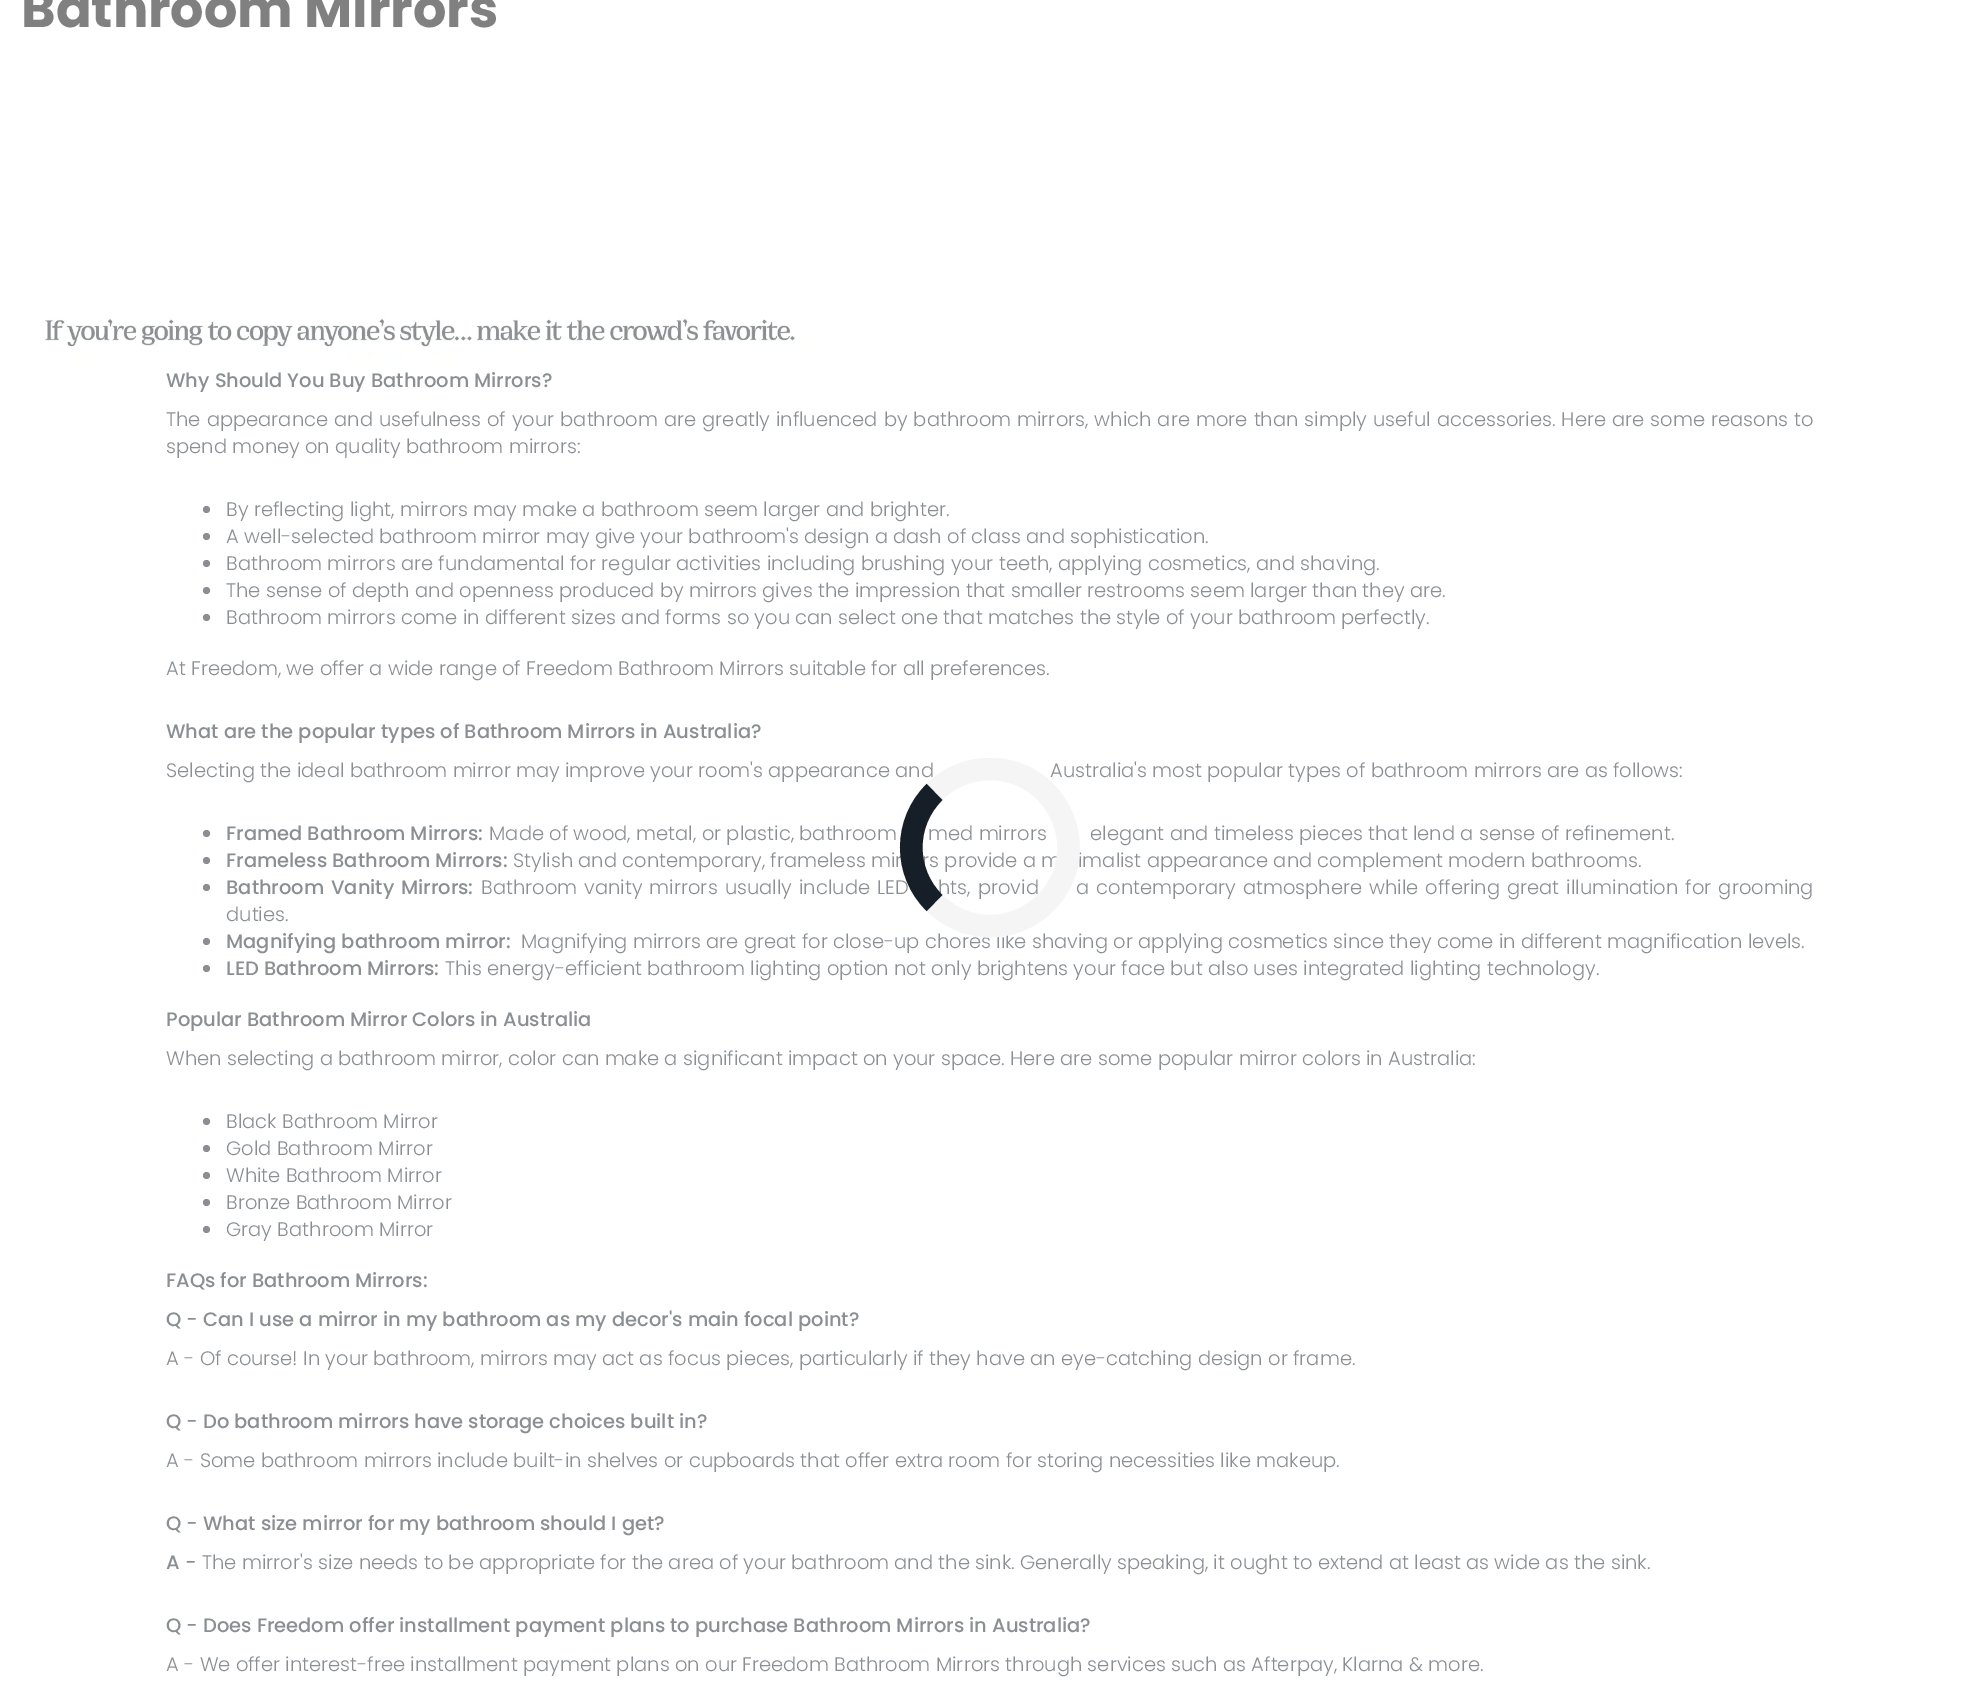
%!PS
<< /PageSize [1979 1694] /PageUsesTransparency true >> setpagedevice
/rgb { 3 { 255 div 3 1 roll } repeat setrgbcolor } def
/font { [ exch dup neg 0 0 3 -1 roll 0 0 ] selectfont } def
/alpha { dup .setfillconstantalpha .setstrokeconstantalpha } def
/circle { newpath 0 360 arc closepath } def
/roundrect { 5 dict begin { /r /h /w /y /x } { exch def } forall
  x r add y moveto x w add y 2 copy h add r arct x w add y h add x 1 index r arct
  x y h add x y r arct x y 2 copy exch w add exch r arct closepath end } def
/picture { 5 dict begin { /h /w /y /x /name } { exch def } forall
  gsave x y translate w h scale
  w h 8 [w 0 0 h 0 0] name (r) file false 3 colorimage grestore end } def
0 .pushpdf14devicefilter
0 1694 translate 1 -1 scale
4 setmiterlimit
255 255 255 rgb
0 0 1979 1694 rectfill
(img/1.rgb) 44 313 778 52 picture
22 31 40 rgb
206.5 509.5 3.5 circle fill
206.5 536.5 3.5 circle fill
206.5 563.5 3.5 circle fill
206.5 590.5 3.5 circle fill
206.5 617.5 3.5 circle fill
206.5 833.5 3.5 circle fill
206.5 860.5 3.5 circle fill
206.5 887.5 3.5 circle fill
206.5 941.5 3.5 circle fill
206.5 968.5 3.5 circle fill
206.5 1121.5 3.5 circle fill
206.5 1148.5 3.5 circle fill
206.5 1175.5 3.5 circle fill
206.5 1202.5 3.5 circle fill
206.5 1229.5 3.5 circle fill
/Poppins-Bold 52.5 font
0 0 0 rgb
21 27 moveto (Bathroom Mirrors) show
/Poppins-Medium 19.5 font
22 31 40 rgb
166 387 moveto (Why Should You Buy Bathroom Mirrors?) show
/Poppins-Light 19.5 font
166 426 moveto 0.7 0 32 (The appearance and usefulness of your bathroom are greatly influenced by bathroom mirrors, which are more than simply useful accessories. Here are some reasons to) widthshow
[
  [(spend money on quality bathroom mirrors:) 166 453]
  [(By reflecting light, mirrors may make a bathroom seem larger and brighter.) 226 516]
  [(A well-selected bathroom mirror may give your bathroom's design a dash of class and sophistication.) 226 543]
  [(Bathroom mirrors are fundamental for regular activities including brushing your teeth, applying cosmetics, and shaving.) 226 570]
  [(The sense of depth and openness produced by mirrors gives the impression that smaller restrooms seem larger than they are.) 226 597]
  [(Bathroom mirrors come in different sizes and forms so you can select one that matches the style of your bathroom perfectly.) 226 624]
  [(At Freedom, we offer a wide range of Freedom Bathroom Mirrors suitable for all preferences.) 166 675]
] { aload pop moveto show } forall
/Poppins-Medium 19.5 font
166 738 moveto (What are the popular types of Bathroom Mirrors in Australia?) show
/Poppins-Light 19.5 font
166 777 moveto (Selecting the ideal bathroom mirror may improve your room's appearance and) show
1050 777 moveto (Australia's most popular types of bathroom mirrors are as follows:) show
/Poppins-Medium 19.5 font
226 840 moveto (Framed Bathroom Mirrors:) show
/Poppins-Light 19.5 font
[
  [(Made of wood, metal, or plastic, bathroom) 489 840]
  [(med mirrors) 928 840]
  [(elegant and timeless pieces that lend a sense of refinement.) 1090 840]
] { aload pop moveto show } forall
/Poppins-Medium 19.5 font
226 867 moveto (Frameless Bathroom Mirrors:) show
/Poppins-Light 19.5 font
[
  [(Stylish and contemporary, frameless mir) 513 867]
  [(rs provide a m) 922 867]
  [(imalist appearance and complement modern bathrooms.) 1078 867]
] { aload pop moveto show } forall
/Poppins-Medium 19.5 font
226 894 moveto 1.75 0 32 (Bathroom Vanity Mirrors:) widthshow
/Poppins-Light 19.5 font
481 894 moveto 1.75 0 32 (Bathroom vanity mirrors usually include LED) widthshow
938 894 moveto 1.75 0 32 (hts, provid) widthshow
1076 894 moveto 1.75 0 32 (a contemporary atmosphere while offering great illumination for grooming) widthshow
226 921 moveto (duties.) show
/Poppins-Medium 19.5 font
226 948 moveto (Magnifying bathroom mirror:) show
/Poppins-Light 19.5 font
521 948 moveto (Magnifying mirrors are great for close-up chores like shaving or applying cosmetics since they come in different magnification levels.) show
/Poppins-Medium 19.5 font
226 975 moveto (LED Bathroom Mirrors:) show
/Poppins-Light 19.5 font
445 975 moveto (This energy-efficient bathroom lighting option not only brightens your face but also uses integrated lighting technology.) show
/Poppins-Medium 19.5 font
166 1026 moveto (Popular Bathroom Mirror Colors in Australia) show
/Poppins-Light 19.5 font
[
  [(When selecting a bathroom mirror, color can make a significant impact on your space. Here are some popular mirror colors in Australia:) 166 1065]
  [(Black Bathroom Mirror) 226 1128]
  [(Gold Bathroom Mirror) 226 1155]
  [(White Bathroom Mirror) 226 1182]
  [(Bronze Bathroom Mirror) 226 1209]
  [(Gray Bathroom Mirror) 226 1236]
] { aload pop moveto show } forall
/Poppins-Medium 19.5 font
166 1287 moveto (FAQs for Bathroom Mirrors:) show
166 1326 moveto (Q - Can I use a mirror in my bathroom as my decor's main focal point?) show
/Poppins-Light 19.5 font
166 1365 moveto (A - Of course! In your bathroom, mirrors may act as focus pieces, particularly if they have an eye-catching design or frame.) show
/Poppins-Medium 19.5 font
166 1428 moveto (Q - Do bathroom mirrors have storage choices built in?) show
/Poppins-Light 19.5 font
166 1467 moveto (A - Some bathroom mirrors include built-in shelves or cupboards that offer extra room for storing necessities like makeup.) show
/Poppins-Medium 19.5 font
166 1530 moveto (Q - What size mirror for my bathroom should I get?) show
166 1569 moveto (A -) show
/Poppins-Light 19.5 font
202 1569 moveto (The mirror's size needs to be appropriate for the area of your bathroom and the sink. Generally speaking, it ought to extend at least as wide as the sink.) show
/Poppins-Medium 19.5 font
166 1632 moveto (Q - Does Freedom offer installment payment plans to purchase Bathroom Mirrors in Australia?) show
/Poppins-Light 19.5 font
166 1671 moveto (A - We offer interest-free installment payment plans on our Freedom Bathroom Mirrors through services such as Afterpay, Klarna & more.) show
0.5 alpha
255 255 255 rgb
0 0 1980 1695 6 roundrect fill
gsave
900 758 180 180 rectclip
1 alpha
245 245 246 rgb
22.5 setlinewidth
934.5 792 moveto 949 777 969.5 769 990 769 curveto 1060 769 1095 854 1045.5 903 curveto 1034.5 914 1020.5 921.5 1005.5 924.5 curveto 980 930 953 921.5 934.5 903 curveto stroke
grestore
1 alpha
22 31 40 rgb
22.5 setlinewidth
934.5 903 moveto 903.5 872.5 903.5 822.5 934.5 792 curveto stroke
.poppdf14devicefilter showpage
